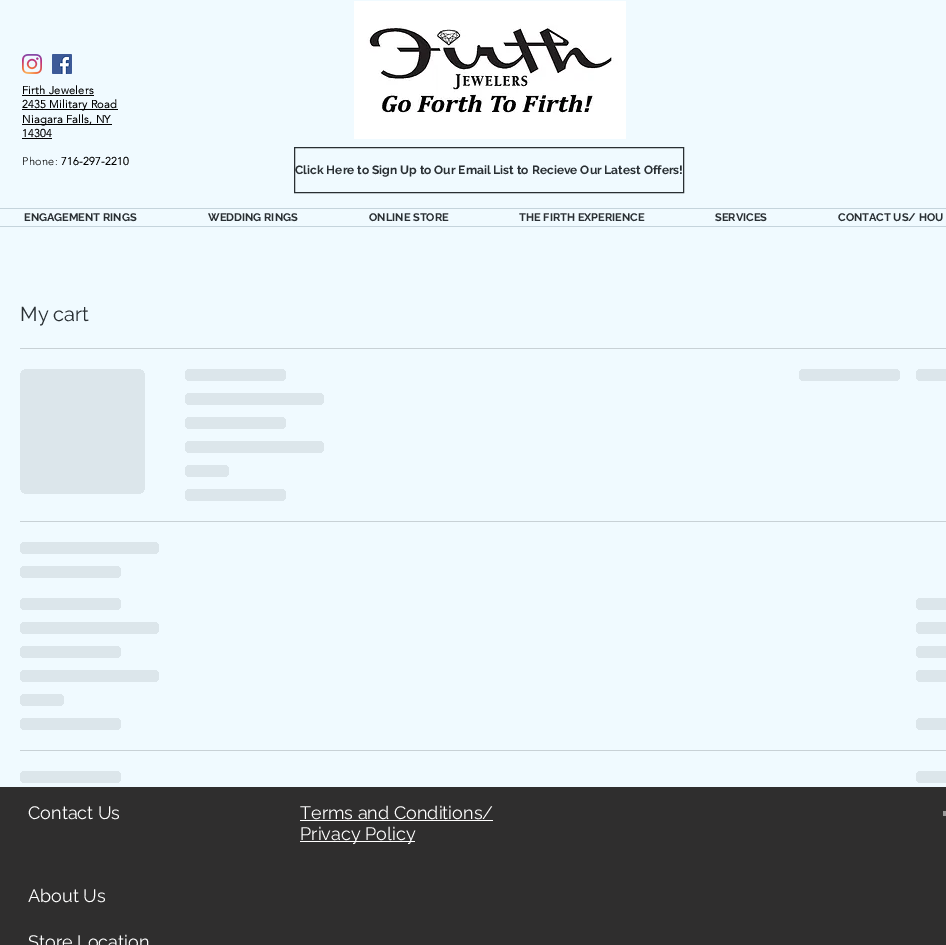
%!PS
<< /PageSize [946 945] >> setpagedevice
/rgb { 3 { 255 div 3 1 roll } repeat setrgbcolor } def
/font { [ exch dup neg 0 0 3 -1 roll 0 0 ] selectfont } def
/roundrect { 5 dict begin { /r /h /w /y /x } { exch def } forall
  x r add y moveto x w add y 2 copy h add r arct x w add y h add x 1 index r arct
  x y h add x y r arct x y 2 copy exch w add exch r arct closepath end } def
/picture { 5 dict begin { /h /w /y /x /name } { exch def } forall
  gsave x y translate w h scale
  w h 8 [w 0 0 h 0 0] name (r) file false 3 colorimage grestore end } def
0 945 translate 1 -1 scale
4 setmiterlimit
240 250 255 rgb
0 0 946 945 rectfill
(img/1.rgb) 22 54 20 20 picture
(img/2.rgb) 52 54 20 20 picture
(img/3.rgb) 354 1 272 138 picture
[
  [22 95 72 1 0 0 0]
  [22 109 96 1 0 0 0]
  [22 124 90 1 0 0 0]
  [22 138 30 1 0 0 0]
] { aload pop rgb rectfill } forall
41 47 51 rgb
294.5 147.5 389 45 rectstroke
[
  [0 208 946 1 197 212 220]
  [0 226 946 1 197 212 220]
  [20 348 926 1 200 209 214]
] { aload pop rgb rectfill } forall
gsave 20 369 125 125 8 roundrect clip newpath
<< /ShadingType 2 /ColorSpace /DeviceRGB /Coords [20 432 520 432] /Extend [true true] /Function << /FunctionType 3 /Domain [0 1] /Functions [<< /FunctionType 2 /Domain [0 1] /C0 [0.863 0.902 0.922] /C1 [0.863 0.902 0.922] /N 1 >> << /FunctionType 2 /Domain [0 1] /C0 [0.863 0.902 0.922] /C1 [0.784 0.82 0.839] /N 1 >> << /FunctionType 2 /Domain [0 1] /C0 [0.784 0.82 0.839] /C1 [0.863 0.902 0.922] /N 1 >> << /FunctionType 2 /Domain [0 1] /C0 [0.863 0.902 0.922] /C1 [0.863 0.902 0.922] /N 1 >>] /Bounds [0.25 0.37 0.63] /Encode [0 1 0 1 0 1 0 1] >> >> shfill grestore
gsave 185 369 101 12 6 roundrect clip newpath
<< /ShadingType 2 /ColorSpace /DeviceRGB /Coords [185 375 589 375] /Extend [true true] /Function << /FunctionType 3 /Domain [0 1] /Functions [<< /FunctionType 2 /Domain [0 1] /C0 [0.863 0.902 0.922] /C1 [0.863 0.902 0.922] /N 1 >> << /FunctionType 2 /Domain [0 1] /C0 [0.863 0.902 0.922] /C1 [0.784 0.82 0.839] /N 1 >> << /FunctionType 2 /Domain [0 1] /C0 [0.784 0.82 0.839] /C1 [0.863 0.902 0.922] /N 1 >> << /FunctionType 2 /Domain [0 1] /C0 [0.863 0.902 0.922] /C1 [0.863 0.902 0.922] /N 1 >>] /Bounds [0.25 0.37 0.63] /Encode [0 1 0 1 0 1 0 1] >> >> shfill grestore
gsave 185 393 139 12 6 roundrect clip newpath
<< /ShadingType 2 /ColorSpace /DeviceRGB /Coords [185 399 741 399] /Extend [true true] /Function << /FunctionType 3 /Domain [0 1] /Functions [<< /FunctionType 2 /Domain [0 1] /C0 [0.863 0.902 0.922] /C1 [0.863 0.902 0.922] /N 1 >> << /FunctionType 2 /Domain [0 1] /C0 [0.863 0.902 0.922] /C1 [0.784 0.82 0.839] /N 1 >> << /FunctionType 2 /Domain [0 1] /C0 [0.784 0.82 0.839] /C1 [0.863 0.902 0.922] /N 1 >> << /FunctionType 2 /Domain [0 1] /C0 [0.863 0.902 0.922] /C1 [0.863 0.902 0.922] /N 1 >>] /Bounds [0.25 0.37 0.63] /Encode [0 1 0 1 0 1 0 1] >> >> shfill grestore
gsave 185 417 101 12 6 roundrect clip newpath
<< /ShadingType 2 /ColorSpace /DeviceRGB /Coords [185 423 589 423] /Extend [true true] /Function << /FunctionType 3 /Domain [0 1] /Functions [<< /FunctionType 2 /Domain [0 1] /C0 [0.863 0.902 0.922] /C1 [0.863 0.902 0.922] /N 1 >> << /FunctionType 2 /Domain [0 1] /C0 [0.863 0.902 0.922] /C1 [0.784 0.82 0.839] /N 1 >> << /FunctionType 2 /Domain [0 1] /C0 [0.784 0.82 0.839] /C1 [0.863 0.902 0.922] /N 1 >> << /FunctionType 2 /Domain [0 1] /C0 [0.863 0.902 0.922] /C1 [0.863 0.902 0.922] /N 1 >>] /Bounds [0.25 0.37 0.63] /Encode [0 1 0 1 0 1 0 1] >> >> shfill grestore
gsave 185 441 139 12 6 roundrect clip newpath
<< /ShadingType 2 /ColorSpace /DeviceRGB /Coords [185 447 741 447] /Extend [true true] /Function << /FunctionType 3 /Domain [0 1] /Functions [<< /FunctionType 2 /Domain [0 1] /C0 [0.863 0.902 0.922] /C1 [0.863 0.902 0.922] /N 1 >> << /FunctionType 2 /Domain [0 1] /C0 [0.863 0.902 0.922] /C1 [0.784 0.82 0.839] /N 1 >> << /FunctionType 2 /Domain [0 1] /C0 [0.784 0.82 0.839] /C1 [0.863 0.902 0.922] /N 1 >> << /FunctionType 2 /Domain [0 1] /C0 [0.863 0.902 0.922] /C1 [0.863 0.902 0.922] /N 1 >>] /Bounds [0.25 0.37 0.63] /Encode [0 1 0 1 0 1 0 1] >> >> shfill grestore
gsave 185 465 44 12 6 roundrect clip newpath
<< /ShadingType 2 /ColorSpace /DeviceRGB /Coords [185 471 361 471] /Extend [true true] /Function << /FunctionType 3 /Domain [0 1] /Functions [<< /FunctionType 2 /Domain [0 1] /C0 [0.863 0.902 0.922] /C1 [0.863 0.902 0.922] /N 1 >> << /FunctionType 2 /Domain [0 1] /C0 [0.863 0.902 0.922] /C1 [0.784 0.82 0.839] /N 1 >> << /FunctionType 2 /Domain [0 1] /C0 [0.784 0.82 0.839] /C1 [0.863 0.902 0.922] /N 1 >> << /FunctionType 2 /Domain [0 1] /C0 [0.863 0.902 0.922] /C1 [0.863 0.902 0.922] /N 1 >>] /Bounds [0.25 0.37 0.63] /Encode [0 1 0 1 0 1 0 1] >> >> shfill grestore
gsave 185 489 101 12 6 roundrect clip newpath
<< /ShadingType 2 /ColorSpace /DeviceRGB /Coords [185 495 589 495] /Extend [true true] /Function << /FunctionType 3 /Domain [0 1] /Functions [<< /FunctionType 2 /Domain [0 1] /C0 [0.863 0.902 0.922] /C1 [0.863 0.902 0.922] /N 1 >> << /FunctionType 2 /Domain [0 1] /C0 [0.863 0.902 0.922] /C1 [0.784 0.82 0.839] /N 1 >> << /FunctionType 2 /Domain [0 1] /C0 [0.784 0.82 0.839] /C1 [0.863 0.902 0.922] /N 1 >> << /FunctionType 2 /Domain [0 1] /C0 [0.863 0.902 0.922] /C1 [0.863 0.902 0.922] /N 1 >>] /Bounds [0.25 0.37 0.63] /Encode [0 1 0 1 0 1 0 1] >> >> shfill grestore
gsave 799 369 101 12 6 roundrect clip newpath
<< /ShadingType 2 /ColorSpace /DeviceRGB /Coords [799 375 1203 375] /Extend [true true] /Function << /FunctionType 3 /Domain [0 1] /Functions [<< /FunctionType 2 /Domain [0 1] /C0 [0.863 0.902 0.922] /C1 [0.863 0.902 0.922] /N 1 >> << /FunctionType 2 /Domain [0 1] /C0 [0.863 0.902 0.922] /C1 [0.784 0.82 0.839] /N 1 >> << /FunctionType 2 /Domain [0 1] /C0 [0.784 0.82 0.839] /C1 [0.863 0.902 0.922] /N 1 >> << /FunctionType 2 /Domain [0 1] /C0 [0.863 0.902 0.922] /C1 [0.863 0.902 0.922] /N 1 >>] /Bounds [0.25 0.37 0.63] /Encode [0 1 0 1 0 1 0 1] >> >> shfill grestore
gsave 916 369 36 12 6 roundrect clip newpath
<< /ShadingType 2 /ColorSpace /DeviceRGB /Coords [916 375 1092 375] /Extend [true true] /Function << /FunctionType 3 /Domain [0 1] /Functions [<< /FunctionType 2 /Domain [0 1] /C0 [0.863 0.902 0.922] /C1 [0.863 0.902 0.922] /N 1 >> << /FunctionType 2 /Domain [0 1] /C0 [0.863 0.902 0.922] /C1 [0.784 0.82 0.839] /N 1 >> << /FunctionType 2 /Domain [0 1] /C0 [0.784 0.82 0.839] /C1 [0.863 0.902 0.922] /N 1 >> << /FunctionType 2 /Domain [0 1] /C0 [0.863 0.902 0.922] /C1 [0.863 0.902 0.922] /N 1 >>] /Bounds [0.25 0.37 0.63] /Encode [0 1 0 1 0 1 0 1] >> >> shfill grestore
20 521 926 1 rectfill
gsave 20 542 139 12 6 roundrect clip newpath
<< /ShadingType 2 /ColorSpace /DeviceRGB /Coords [20 548 576 548] /Extend [true true] /Function << /FunctionType 3 /Domain [0 1] /Functions [<< /FunctionType 2 /Domain [0 1] /C0 [0.863 0.902 0.922] /C1 [0.863 0.902 0.922] /N 1 >> << /FunctionType 2 /Domain [0 1] /C0 [0.863 0.902 0.922] /C1 [0.784 0.82 0.839] /N 1 >> << /FunctionType 2 /Domain [0 1] /C0 [0.784 0.82 0.839] /C1 [0.863 0.902 0.922] /N 1 >> << /FunctionType 2 /Domain [0 1] /C0 [0.863 0.902 0.922] /C1 [0.863 0.902 0.922] /N 1 >>] /Bounds [0.25 0.37 0.63] /Encode [0 1 0 1 0 1 0 1] >> >> shfill grestore
gsave 20 566 101 12 6 roundrect clip newpath
<< /ShadingType 2 /ColorSpace /DeviceRGB /Coords [20 572 424 572] /Extend [true true] /Function << /FunctionType 3 /Domain [0 1] /Functions [<< /FunctionType 2 /Domain [0 1] /C0 [0.863 0.902 0.922] /C1 [0.863 0.902 0.922] /N 1 >> << /FunctionType 2 /Domain [0 1] /C0 [0.863 0.902 0.922] /C1 [0.784 0.82 0.839] /N 1 >> << /FunctionType 2 /Domain [0 1] /C0 [0.784 0.82 0.839] /C1 [0.863 0.902 0.922] /N 1 >> << /FunctionType 2 /Domain [0 1] /C0 [0.863 0.902 0.922] /C1 [0.863 0.902 0.922] /N 1 >>] /Bounds [0.25 0.37 0.63] /Encode [0 1 0 1 0 1 0 1] >> >> shfill grestore
gsave 20 598 101 12 6 roundrect clip newpath
<< /ShadingType 2 /ColorSpace /DeviceRGB /Coords [20 604 424 604] /Extend [true true] /Function << /FunctionType 3 /Domain [0 1] /Functions [<< /FunctionType 2 /Domain [0 1] /C0 [0.863 0.902 0.922] /C1 [0.863 0.902 0.922] /N 1 >> << /FunctionType 2 /Domain [0 1] /C0 [0.863 0.902 0.922] /C1 [0.784 0.82 0.839] /N 1 >> << /FunctionType 2 /Domain [0 1] /C0 [0.784 0.82 0.839] /C1 [0.863 0.902 0.922] /N 1 >> << /FunctionType 2 /Domain [0 1] /C0 [0.863 0.902 0.922] /C1 [0.863 0.902 0.922] /N 1 >>] /Bounds [0.25 0.37 0.63] /Encode [0 1 0 1 0 1 0 1] >> >> shfill grestore
gsave 916 598 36 12 6 roundrect clip newpath
<< /ShadingType 2 /ColorSpace /DeviceRGB /Coords [916 604 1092 604] /Extend [true true] /Function << /FunctionType 3 /Domain [0 1] /Functions [<< /FunctionType 2 /Domain [0 1] /C0 [0.863 0.902 0.922] /C1 [0.863 0.902 0.922] /N 1 >> << /FunctionType 2 /Domain [0 1] /C0 [0.863 0.902 0.922] /C1 [0.784 0.82 0.839] /N 1 >> << /FunctionType 2 /Domain [0 1] /C0 [0.784 0.82 0.839] /C1 [0.863 0.902 0.922] /N 1 >> << /FunctionType 2 /Domain [0 1] /C0 [0.863 0.902 0.922] /C1 [0.863 0.902 0.922] /N 1 >>] /Bounds [0.25 0.37 0.63] /Encode [0 1 0 1 0 1 0 1] >> >> shfill grestore
gsave 20 622 139 12 6 roundrect clip newpath
<< /ShadingType 2 /ColorSpace /DeviceRGB /Coords [20 628 576 628] /Extend [true true] /Function << /FunctionType 3 /Domain [0 1] /Functions [<< /FunctionType 2 /Domain [0 1] /C0 [0.863 0.902 0.922] /C1 [0.863 0.902 0.922] /N 1 >> << /FunctionType 2 /Domain [0 1] /C0 [0.863 0.902 0.922] /C1 [0.784 0.82 0.839] /N 1 >> << /FunctionType 2 /Domain [0 1] /C0 [0.784 0.82 0.839] /C1 [0.863 0.902 0.922] /N 1 >> << /FunctionType 2 /Domain [0 1] /C0 [0.863 0.902 0.922] /C1 [0.863 0.902 0.922] /N 1 >>] /Bounds [0.25 0.37 0.63] /Encode [0 1 0 1 0 1 0 1] >> >> shfill grestore
gsave 916 622 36 12 6 roundrect clip newpath
<< /ShadingType 2 /ColorSpace /DeviceRGB /Coords [916 628 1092 628] /Extend [true true] /Function << /FunctionType 3 /Domain [0 1] /Functions [<< /FunctionType 2 /Domain [0 1] /C0 [0.863 0.902 0.922] /C1 [0.863 0.902 0.922] /N 1 >> << /FunctionType 2 /Domain [0 1] /C0 [0.863 0.902 0.922] /C1 [0.784 0.82 0.839] /N 1 >> << /FunctionType 2 /Domain [0 1] /C0 [0.784 0.82 0.839] /C1 [0.863 0.902 0.922] /N 1 >> << /FunctionType 2 /Domain [0 1] /C0 [0.863 0.902 0.922] /C1 [0.863 0.902 0.922] /N 1 >>] /Bounds [0.25 0.37 0.63] /Encode [0 1 0 1 0 1 0 1] >> >> shfill grestore
gsave 20 646 101 12 6 roundrect clip newpath
<< /ShadingType 2 /ColorSpace /DeviceRGB /Coords [20 652 424 652] /Extend [true true] /Function << /FunctionType 3 /Domain [0 1] /Functions [<< /FunctionType 2 /Domain [0 1] /C0 [0.863 0.902 0.922] /C1 [0.863 0.902 0.922] /N 1 >> << /FunctionType 2 /Domain [0 1] /C0 [0.863 0.902 0.922] /C1 [0.784 0.82 0.839] /N 1 >> << /FunctionType 2 /Domain [0 1] /C0 [0.784 0.82 0.839] /C1 [0.863 0.902 0.922] /N 1 >> << /FunctionType 2 /Domain [0 1] /C0 [0.863 0.902 0.922] /C1 [0.863 0.902 0.922] /N 1 >>] /Bounds [0.25 0.37 0.63] /Encode [0 1 0 1 0 1 0 1] >> >> shfill grestore
gsave 916 646 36 12 6 roundrect clip newpath
<< /ShadingType 2 /ColorSpace /DeviceRGB /Coords [916 652 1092 652] /Extend [true true] /Function << /FunctionType 3 /Domain [0 1] /Functions [<< /FunctionType 2 /Domain [0 1] /C0 [0.863 0.902 0.922] /C1 [0.863 0.902 0.922] /N 1 >> << /FunctionType 2 /Domain [0 1] /C0 [0.863 0.902 0.922] /C1 [0.784 0.82 0.839] /N 1 >> << /FunctionType 2 /Domain [0 1] /C0 [0.784 0.82 0.839] /C1 [0.863 0.902 0.922] /N 1 >> << /FunctionType 2 /Domain [0 1] /C0 [0.863 0.902 0.922] /C1 [0.863 0.902 0.922] /N 1 >>] /Bounds [0.25 0.37 0.63] /Encode [0 1 0 1 0 1 0 1] >> >> shfill grestore
gsave 20 670 139 12 6 roundrect clip newpath
<< /ShadingType 2 /ColorSpace /DeviceRGB /Coords [20 676 576 676] /Extend [true true] /Function << /FunctionType 3 /Domain [0 1] /Functions [<< /FunctionType 2 /Domain [0 1] /C0 [0.863 0.902 0.922] /C1 [0.863 0.902 0.922] /N 1 >> << /FunctionType 2 /Domain [0 1] /C0 [0.863 0.902 0.922] /C1 [0.784 0.82 0.839] /N 1 >> << /FunctionType 2 /Domain [0 1] /C0 [0.784 0.82 0.839] /C1 [0.863 0.902 0.922] /N 1 >> << /FunctionType 2 /Domain [0 1] /C0 [0.863 0.902 0.922] /C1 [0.863 0.902 0.922] /N 1 >>] /Bounds [0.25 0.37 0.63] /Encode [0 1 0 1 0 1 0 1] >> >> shfill grestore
gsave 916 670 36 12 6 roundrect clip newpath
<< /ShadingType 2 /ColorSpace /DeviceRGB /Coords [916 676 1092 676] /Extend [true true] /Function << /FunctionType 3 /Domain [0 1] /Functions [<< /FunctionType 2 /Domain [0 1] /C0 [0.863 0.902 0.922] /C1 [0.863 0.902 0.922] /N 1 >> << /FunctionType 2 /Domain [0 1] /C0 [0.863 0.902 0.922] /C1 [0.784 0.82 0.839] /N 1 >> << /FunctionType 2 /Domain [0 1] /C0 [0.784 0.82 0.839] /C1 [0.863 0.902 0.922] /N 1 >> << /FunctionType 2 /Domain [0 1] /C0 [0.863 0.902 0.922] /C1 [0.863 0.902 0.922] /N 1 >>] /Bounds [0.25 0.37 0.63] /Encode [0 1 0 1 0 1 0 1] >> >> shfill grestore
gsave 20 694 44 12 6 roundrect clip newpath
<< /ShadingType 2 /ColorSpace /DeviceRGB /Coords [20 700 196 700] /Extend [true true] /Function << /FunctionType 3 /Domain [0 1] /Functions [<< /FunctionType 2 /Domain [0 1] /C0 [0.863 0.902 0.922] /C1 [0.863 0.902 0.922] /N 1 >> << /FunctionType 2 /Domain [0 1] /C0 [0.863 0.902 0.922] /C1 [0.784 0.82 0.839] /N 1 >> << /FunctionType 2 /Domain [0 1] /C0 [0.784 0.82 0.839] /C1 [0.863 0.902 0.922] /N 1 >> << /FunctionType 2 /Domain [0 1] /C0 [0.863 0.902 0.922] /C1 [0.863 0.902 0.922] /N 1 >>] /Bounds [0.25 0.37 0.63] /Encode [0 1 0 1 0 1 0 1] >> >> shfill grestore
gsave 20 718 101 12 6 roundrect clip newpath
<< /ShadingType 2 /ColorSpace /DeviceRGB /Coords [20 724 424 724] /Extend [true true] /Function << /FunctionType 3 /Domain [0 1] /Functions [<< /FunctionType 2 /Domain [0 1] /C0 [0.863 0.902 0.922] /C1 [0.863 0.902 0.922] /N 1 >> << /FunctionType 2 /Domain [0 1] /C0 [0.863 0.902 0.922] /C1 [0.784 0.82 0.839] /N 1 >> << /FunctionType 2 /Domain [0 1] /C0 [0.784 0.82 0.839] /C1 [0.863 0.902 0.922] /N 1 >> << /FunctionType 2 /Domain [0 1] /C0 [0.863 0.902 0.922] /C1 [0.863 0.902 0.922] /N 1 >>] /Bounds [0.25 0.37 0.63] /Encode [0 1 0 1 0 1 0 1] >> >> shfill grestore
gsave 916 718 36 12 6 roundrect clip newpath
<< /ShadingType 2 /ColorSpace /DeviceRGB /Coords [916 724 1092 724] /Extend [true true] /Function << /FunctionType 3 /Domain [0 1] /Functions [<< /FunctionType 2 /Domain [0 1] /C0 [0.863 0.902 0.922] /C1 [0.863 0.902 0.922] /N 1 >> << /FunctionType 2 /Domain [0 1] /C0 [0.863 0.902 0.922] /C1 [0.784 0.82 0.839] /N 1 >> << /FunctionType 2 /Domain [0 1] /C0 [0.784 0.82 0.839] /C1 [0.863 0.902 0.922] /N 1 >> << /FunctionType 2 /Domain [0 1] /C0 [0.863 0.902 0.922] /C1 [0.863 0.902 0.922] /N 1 >>] /Bounds [0.25 0.37 0.63] /Encode [0 1 0 1 0 1 0 1] >> >> shfill grestore
20 750 926 1 rectfill
gsave 20 771 101 12 6 roundrect clip newpath
<< /ShadingType 2 /ColorSpace /DeviceRGB /Coords [20 777 424 777] /Extend [true true] /Function << /FunctionType 3 /Domain [0 1] /Functions [<< /FunctionType 2 /Domain [0 1] /C0 [0.863 0.902 0.922] /C1 [0.863 0.902 0.922] /N 1 >> << /FunctionType 2 /Domain [0 1] /C0 [0.863 0.902 0.922] /C1 [0.784 0.82 0.839] /N 1 >> << /FunctionType 2 /Domain [0 1] /C0 [0.784 0.82 0.839] /C1 [0.863 0.902 0.922] /N 1 >> << /FunctionType 2 /Domain [0 1] /C0 [0.863 0.902 0.922] /C1 [0.863 0.902 0.922] /N 1 >>] /Bounds [0.25 0.37 0.63] /Encode [0 1 0 1 0 1 0 1] >> >> shfill grestore
gsave 916 771 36 12 6 roundrect clip newpath
<< /ShadingType 2 /ColorSpace /DeviceRGB /Coords [916 777 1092 777] /Extend [true true] /Function << /FunctionType 3 /Domain [0 1] /Functions [<< /FunctionType 2 /Domain [0 1] /C0 [0.863 0.902 0.922] /C1 [0.863 0.902 0.922] /N 1 >> << /FunctionType 2 /Domain [0 1] /C0 [0.863 0.902 0.922] /C1 [0.784 0.82 0.839] /N 1 >> << /FunctionType 2 /Domain [0 1] /C0 [0.784 0.82 0.839] /C1 [0.863 0.902 0.922] /N 1 >> << /FunctionType 2 /Domain [0 1] /C0 [0.863 0.902 0.922] /C1 [0.863 0.902 0.922] /N 1 >>] /Bounds [0.25 0.37 0.63] /Encode [0 1 0 1 0 1 0 1] >> >> shfill grestore
[
  [0 787 946 158 47 46 46]
  [300 820 193 1 255 255 255]
  [300 841 115 1 255 255 255]
  [943 811 3 5 153 153 153]
] { aload pop rgb rectfill } forall
/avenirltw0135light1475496-Bold 11 font
0 0 0 rgb
22 94 moveto 0.3 0 (Firth Jewelers) ashow
22 108 moveto 0.3 0 (2435 Military Road) ashow
22 123 moveto 0.3 0 (Niagara Falls, NY) ashow
22 137 moveto 0.3 0 (14304) ashow
/avenirltw0135light1475496-Light 11 font
22 165 moveto 0.3 0 (Phone:) ashow
/avenirltw0135light1475496-Bold 11 font
61 165 moveto 0.3 0 (716-297-2210) ashow
/Raleway-Bold 12 font
41 47 51 rgb
295 174 moveto (Click Here to Sign Up to Our Email List to Recieve Our Latest Offers!) show
/Raleway-Bold 11 font
[
  [(ENGAGEMENT RINGS) 24 221]
  [(WEDDING RINGS) 208 221]
  [(ONLINE STORE) 369 221]
  [(THE FIRTH EXPERIENCE) 519 221]
  [(SERVICES) 715 221]
  [(CONTACT US/ HOU) 838 221]
] { aload pop moveto show } forall
/Raleway-Regular 20 font
20 321 moveto (My cart) show
/Raleway-Regular 18 font
255 255 255 rgb
[
  [(Contact Us) 28 819]
  [(Terms and Conditions/) 300 819]
  [(Privacy Policy) 300 840]
  [(About Us) 28 902]
  [(Store Location) 28 948]
] { aload pop moveto show } forall
showpage
